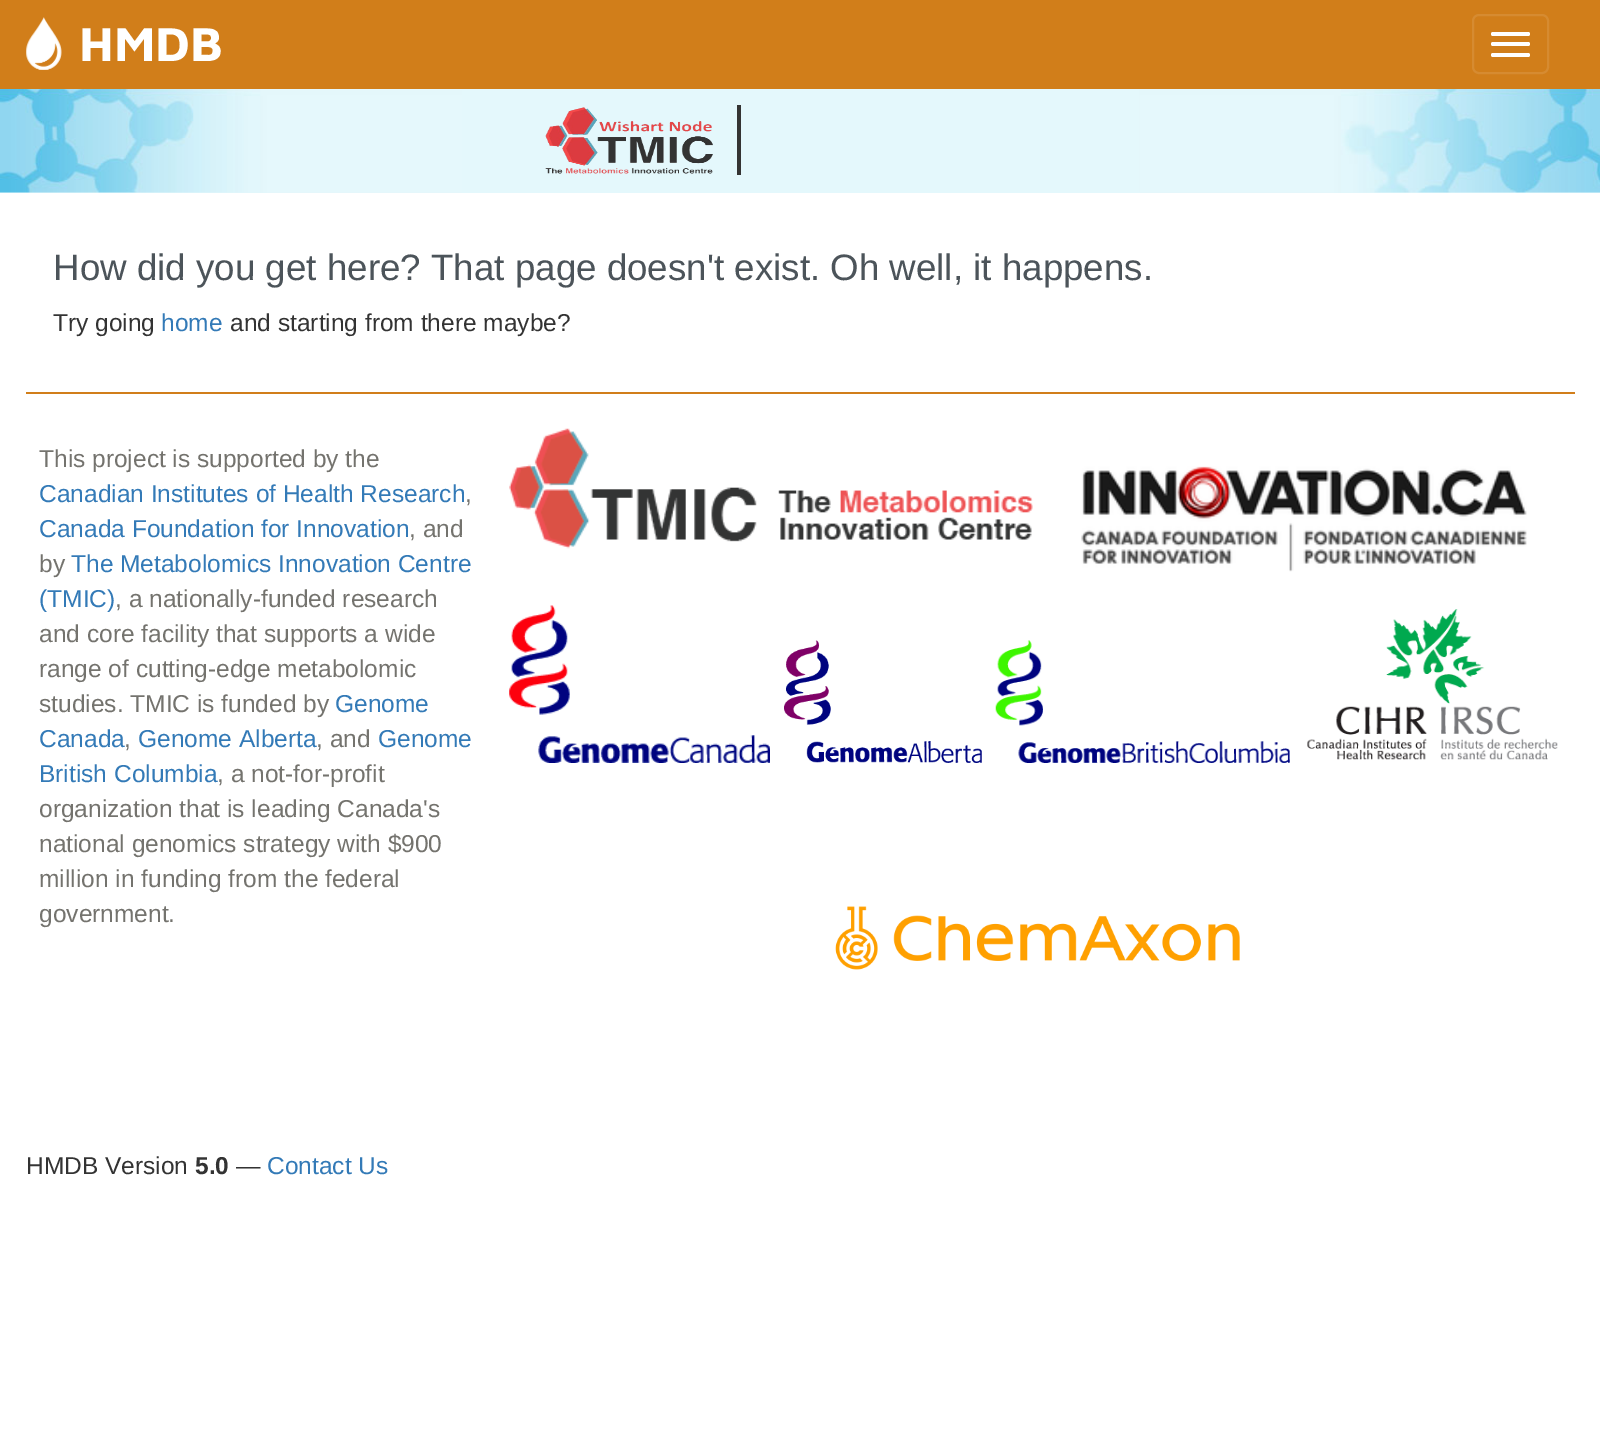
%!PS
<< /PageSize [1600 1436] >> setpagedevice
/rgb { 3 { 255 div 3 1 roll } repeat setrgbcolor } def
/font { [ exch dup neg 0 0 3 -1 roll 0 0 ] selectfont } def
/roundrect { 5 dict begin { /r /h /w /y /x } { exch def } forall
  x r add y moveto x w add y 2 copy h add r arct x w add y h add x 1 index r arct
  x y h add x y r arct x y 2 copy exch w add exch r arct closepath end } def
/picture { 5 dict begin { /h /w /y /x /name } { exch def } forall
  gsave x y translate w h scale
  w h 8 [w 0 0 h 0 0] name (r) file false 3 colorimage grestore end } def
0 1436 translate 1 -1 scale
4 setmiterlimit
255 255 255 rgb
0 0 1600 1436 rectfill
209 126 26 rgb
0 0 1600 89 rectfill
(img/1.rgb) 26 17 36 53 picture
214 139 49 rgb
2 setlinewidth
1473 15 75 58 6 roundrect stroke
255 255 255 rgb
1491 32 39 4 2 roundrect fill
1491 42 39 4 2 roundrect fill
1491 53 39 4 2 roundrect fill
228 248 252 rgb
0 89 1600 104 rectfill
(img/2.rgb) 0 89 1600 104 picture
(img/3.rgb) 545 107 168 67 picture
52 52 51 rgb
737 105 4 70 rectfill
209 126 26 rgb
26 392 1549 2 rectfill
(img/4.rgb) 509 428 524 121 picture
(img/5.rgb) 1081 466 446 106 picture
(img/6.rgb) 509 605 261 158 picture
(img/7.rgb) 784 640 198 123 picture
(img/8.rgb) 995 640 295 123 picture
(img/9.rgb) 1307 609 251 151 picture
(img/10.rgb) 835 906 405 64 picture
/MavenPro-Bold 49 font
255 255 255 rgb
79 61 moveto (HMDB) show
/LiberationSans-Regular 36.75 font
76 84 90 rgb
53 280 moveto (How did you get here? That page doesn't exist. Oh well, it happens.) show
/LiberationSans-Regular 24.5 font
51 51 51 rgb
53 331 moveto (Try going) show
51 122 183 rgb
161 331 moveto (home) show
51 51 51 rgb
230 331 moveto (and starting from there maybe?) show
116 115 110 rgb
39 467 moveto (This project is supported by the) show
51 122 183 rgb
39 502 moveto (Canadian Institutes of Health Research) show
116 115 110 rgb
465 502 moveto (,) show
51 122 183 rgb
39 537 moveto (Canada Foundation for Innovation) show
116 115 110 rgb
409 537 moveto (, and) show
39 572 moveto (by) show
51 122 183 rgb
71 572 moveto (The Metabolomics Innovation Centre) show
39 607 moveto (\(TMIC\)) show
116 115 110 rgb
[
  [(, a nationally-funded research) 115 607]
  [(and core facility that supports a wide) 39 642]
  [(range of cutting-edge metabolomic) 39 677]
  [(studies. TMIC is funded by) 39 712]
] { aload pop moveto show } forall
51 122 183 rgb
335 712 moveto (Genome) show
39 747 moveto (Canada) show
116 115 110 rgb
124 747 moveto (,) show
51 122 183 rgb
138 747 moveto (Genome Alberta) show
116 115 110 rgb
316 747 moveto (, and) show
51 122 183 rgb
378 747 moveto (Genome) show
39 782 moveto (British Columbia) show
116 115 110 rgb
[
  [(, a not-for-profit) 217 782]
  [(organization that is leading Canada's) 39 817]
  [(national genomics strategy with $900) 39 852]
  [(million in funding from the federal) 39 887]
  [(government.) 39 922]
] { aload pop moveto show } forall
51 51 51 rgb
26 1174 moveto (HMDB Version) show
/LiberationSans-Bold 24.5 font
195 1174 moveto (5.0) show
/LiberationSans-Regular 24.5 font
236 1174 moveto (—) show
51 122 183 rgb
267 1174 moveto (Contact Us) show
showpage
